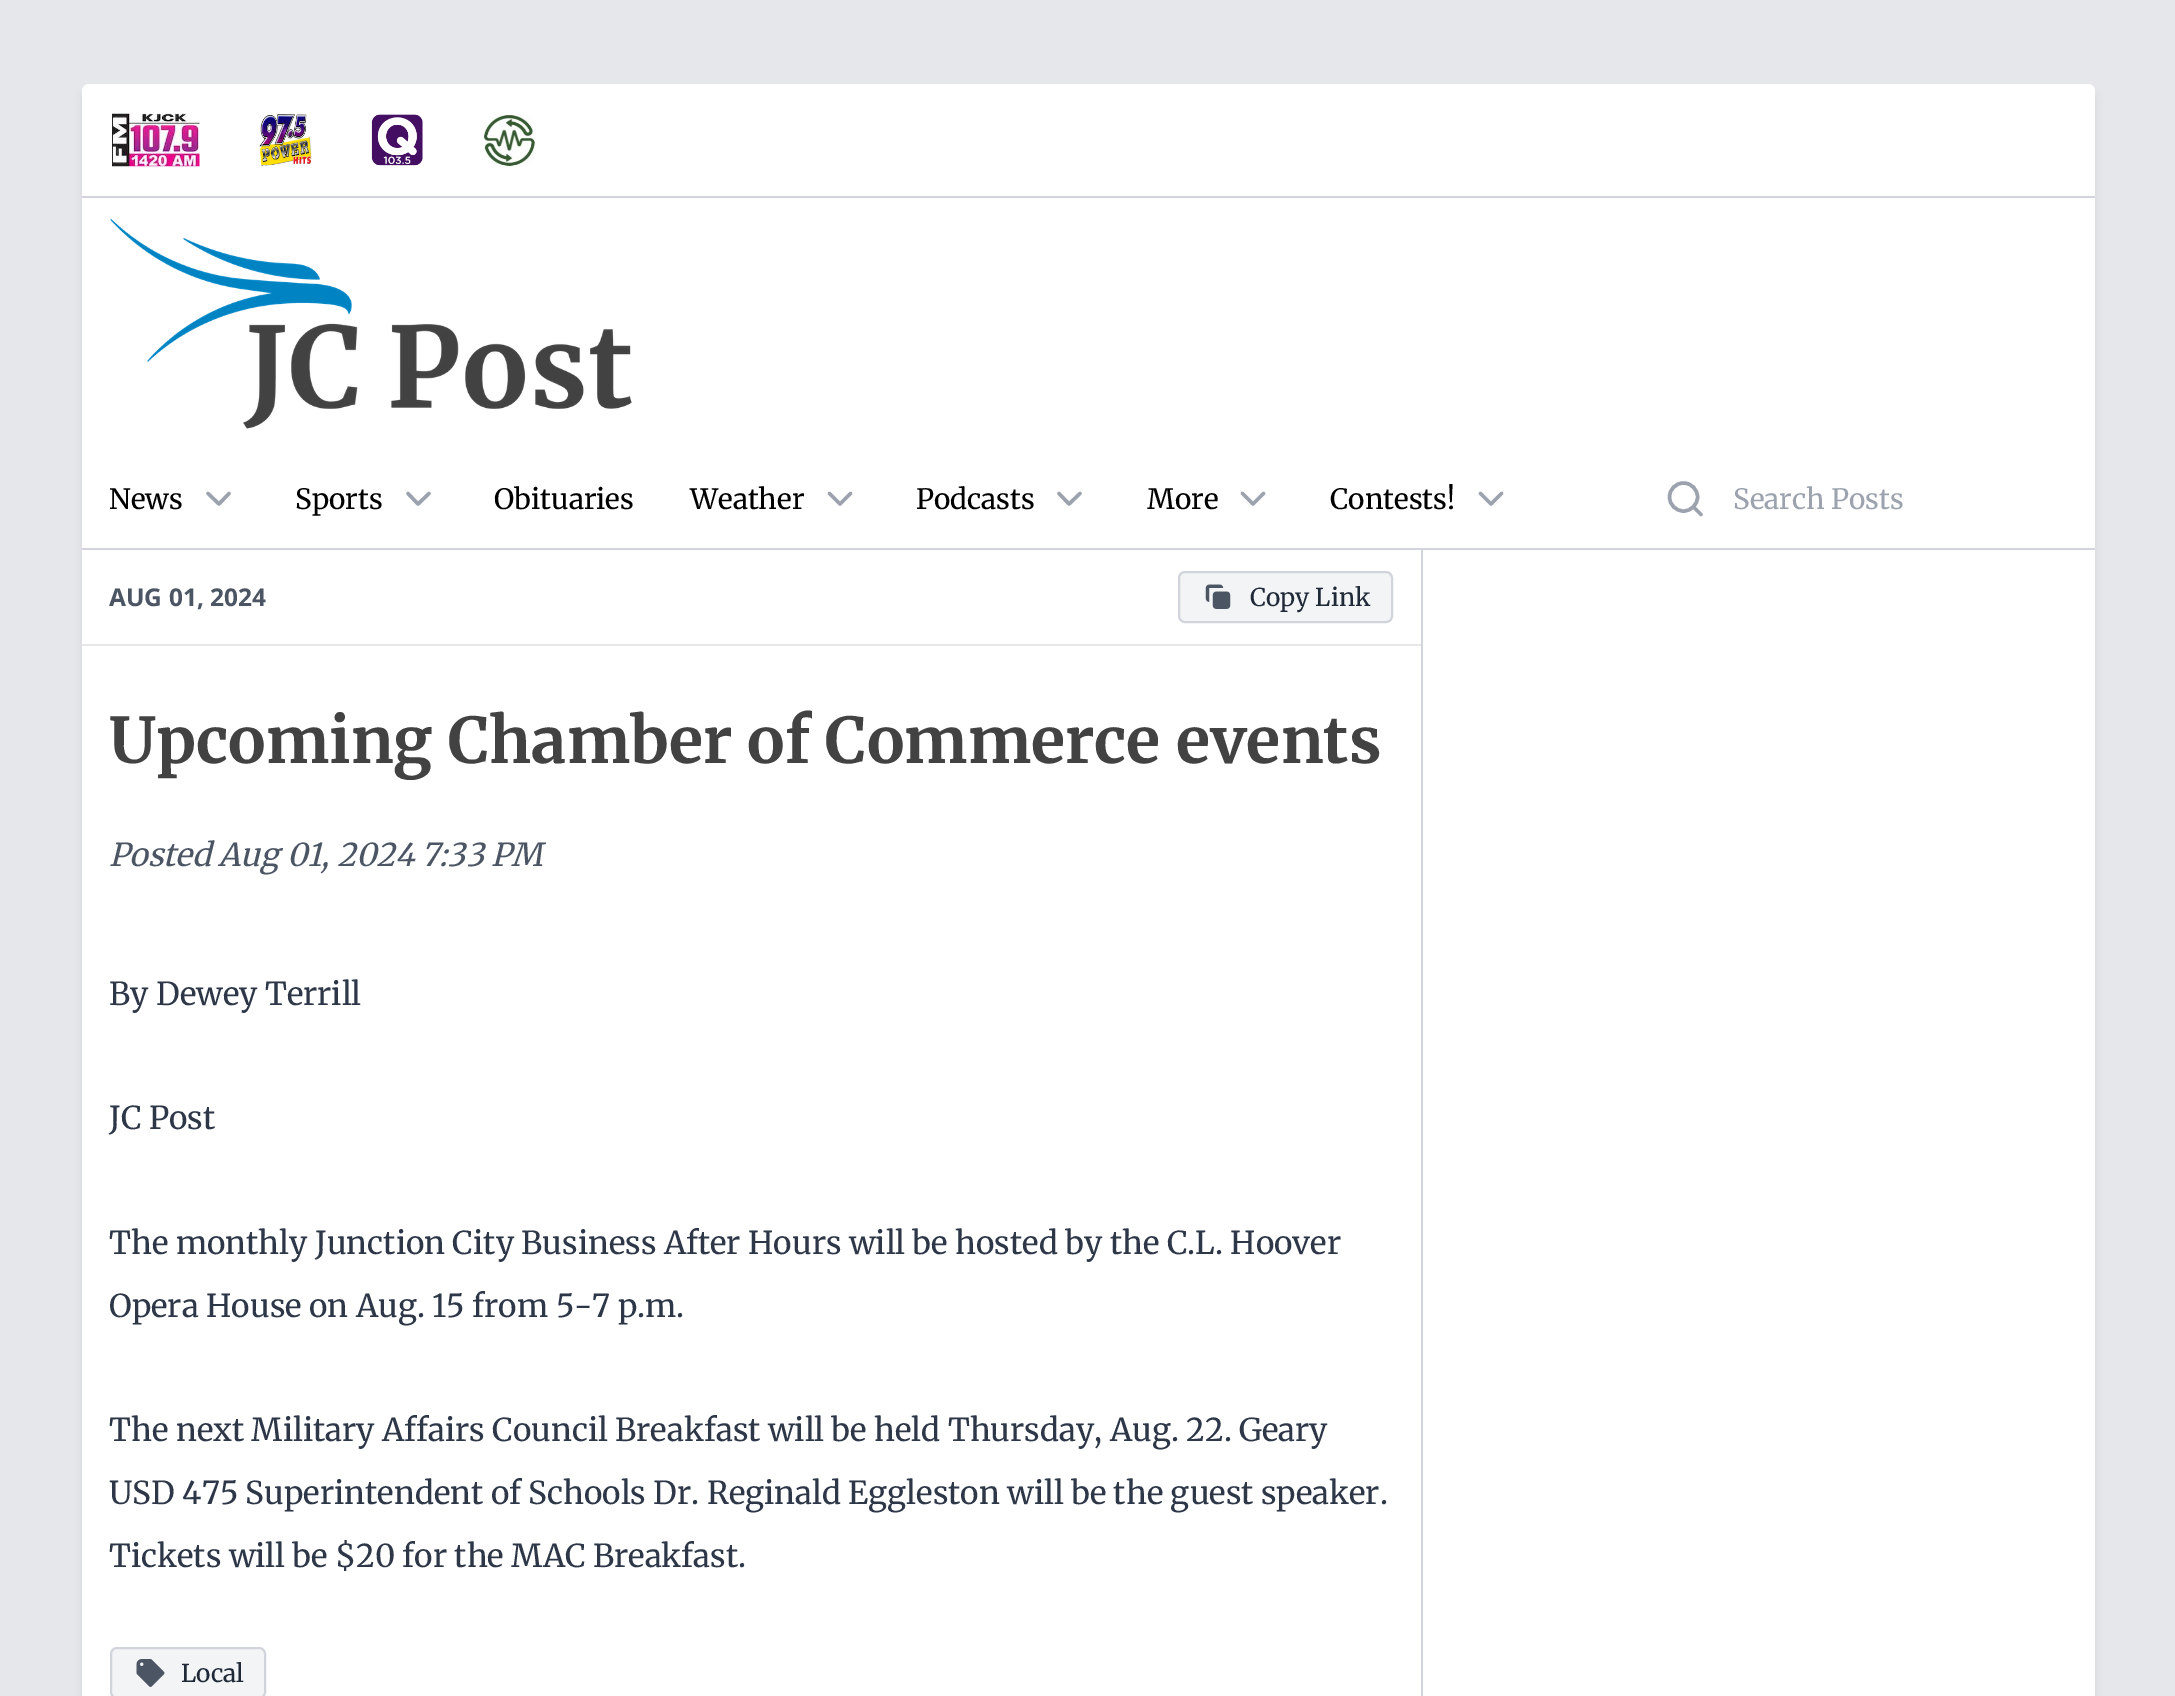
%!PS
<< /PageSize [2175 1696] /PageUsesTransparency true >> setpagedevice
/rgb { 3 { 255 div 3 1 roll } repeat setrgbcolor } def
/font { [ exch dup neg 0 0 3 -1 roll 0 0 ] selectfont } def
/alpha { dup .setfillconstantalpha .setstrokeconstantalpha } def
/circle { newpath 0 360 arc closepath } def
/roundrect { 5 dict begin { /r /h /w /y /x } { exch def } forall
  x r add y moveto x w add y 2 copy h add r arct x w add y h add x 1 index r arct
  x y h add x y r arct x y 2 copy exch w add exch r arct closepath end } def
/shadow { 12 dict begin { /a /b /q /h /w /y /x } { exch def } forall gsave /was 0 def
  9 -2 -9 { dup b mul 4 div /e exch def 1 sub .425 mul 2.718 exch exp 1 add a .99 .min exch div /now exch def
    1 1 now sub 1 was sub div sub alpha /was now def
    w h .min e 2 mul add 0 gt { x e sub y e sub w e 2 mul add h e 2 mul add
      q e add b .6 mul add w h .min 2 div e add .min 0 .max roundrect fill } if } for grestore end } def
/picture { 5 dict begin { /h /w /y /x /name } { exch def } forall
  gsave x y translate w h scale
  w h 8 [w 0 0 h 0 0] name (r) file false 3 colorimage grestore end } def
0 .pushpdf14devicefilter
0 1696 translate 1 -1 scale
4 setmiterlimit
229 231 235 rgb
0 0 2175 1696 rectfill
0 0 0 rgb
84 93 2009 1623 5 5 0.1 shadow
255 255 255 rgb
82 84 2013 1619 7 roundrect fill
209 213 219 rgb
82 196 2013 2 rectfill
(img/1.rgb) 112 113 88 54 picture
(img/2.rgb) 259 114 53 52 picture
(img/3.rgb) 371 114 52 52 picture
(img/4.rgb) 483 114 53 53 picture
(img/5.rgb) 110 218 522 211 picture
82 548 2013 2 rectfill
156 163 175 rgb
3.5 setlinewidth
1 setlinecap
1 setlinejoin
208 493.5 moveto 219 504 lineto 229 493.5 lineto stroke
408 493.5 moveto 418 504 lineto 429 493.5 lineto stroke
829.5 493.5 moveto 840 504 lineto 850.5 493.5 lineto stroke
1059 493.5 moveto 1069 504 lineto 1080 493.5 lineto stroke
1242.5 493.5 moveto 1253 504 lineto 1263.5 493.5 lineto stroke
1480.5 493.5 moveto 1491 504 lineto 1501.5 493.5 lineto stroke
0 setlinecap
0 setlinejoin
1683.5 497 14 circle stroke
1 setlinecap
1 setlinejoin
1701 514.5 moveto 1693.5 507 lineto stroke
209 213 219 rgb
1421 550 2 1146 rectfill
229 231 235 rgb
82 644 1339 2 rectfill
243 244 246 rgb
1179 572 213 50 6 roundrect gsave fill grestore
209 213 219 rgb
2 setlinewidth
0 setlinecap
0 setlinejoin
stroke
(img/6.rgb) 1205 584 26 25 picture
243 244 246 rgb
111 1648 154 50 6 roundrect gsave fill grestore
209 213 219 rgb
stroke
(img/7.rgb) 136 1659 29 28 picture
/Merriweather-Regular 28 font
0 0 0 rgb
[
  [(News) 109 509]
  [(Sports) 295 509]
  [(Obituaries) 494 509]
  [(Weather) 690 509]
  [(Podcasts) 916 509]
  [(More) 1147 509]
  [(Contests!) 1330 509]
] { aload pop moveto show } forall
156 163 175 rgb
1733 509 moveto (Search Posts) show
/NotoSans-Bold 24.5 font
75 85 99 rgb
109 606 moveto (AUG 01, 2024) show
/Merriweather-Regular 24.5 font
31 41 55 rgb
1250 606 moveto (Copy Link) show
/Merriweather-Bold 63 font
66 66 66 rgb
109 763 moveto (Upcoming Chamber of Commerce events) show
/Merriweather-Italic 31.5 font
75 85 99 rgb
109 866 moveto (Posted Aug 01, 2024 7:33 PM) show
/Merriweather-Regular 31.5 font
45 55 72 rgb
[
  [(By Dewey Terrill) 109 1005]
  [(JC Post) 109 1129]
  [(The monthly Junction City Business After Hours will be hosted by the C.L. Hoover) 109 1254]
  [(Opera House on Aug. 15 from 5-7 p.m.) 109 1317]
  [(The next Military Affairs Council Breakfast will be held Thursday, Aug. 22. Geary) 109 1441]
  [(USD 475 Superintendent of Schools Dr. Reginald Eggleston will be the guest speaker.) 109 1504]
  [(Tickets will be $20 for the MAC Breakfast.) 109 1567]
] { aload pop moveto show } forall
/Merriweather-Regular 24.5 font
31 41 55 rgb
181 1682 moveto (Local) show
.poppdf14devicefilter showpage
